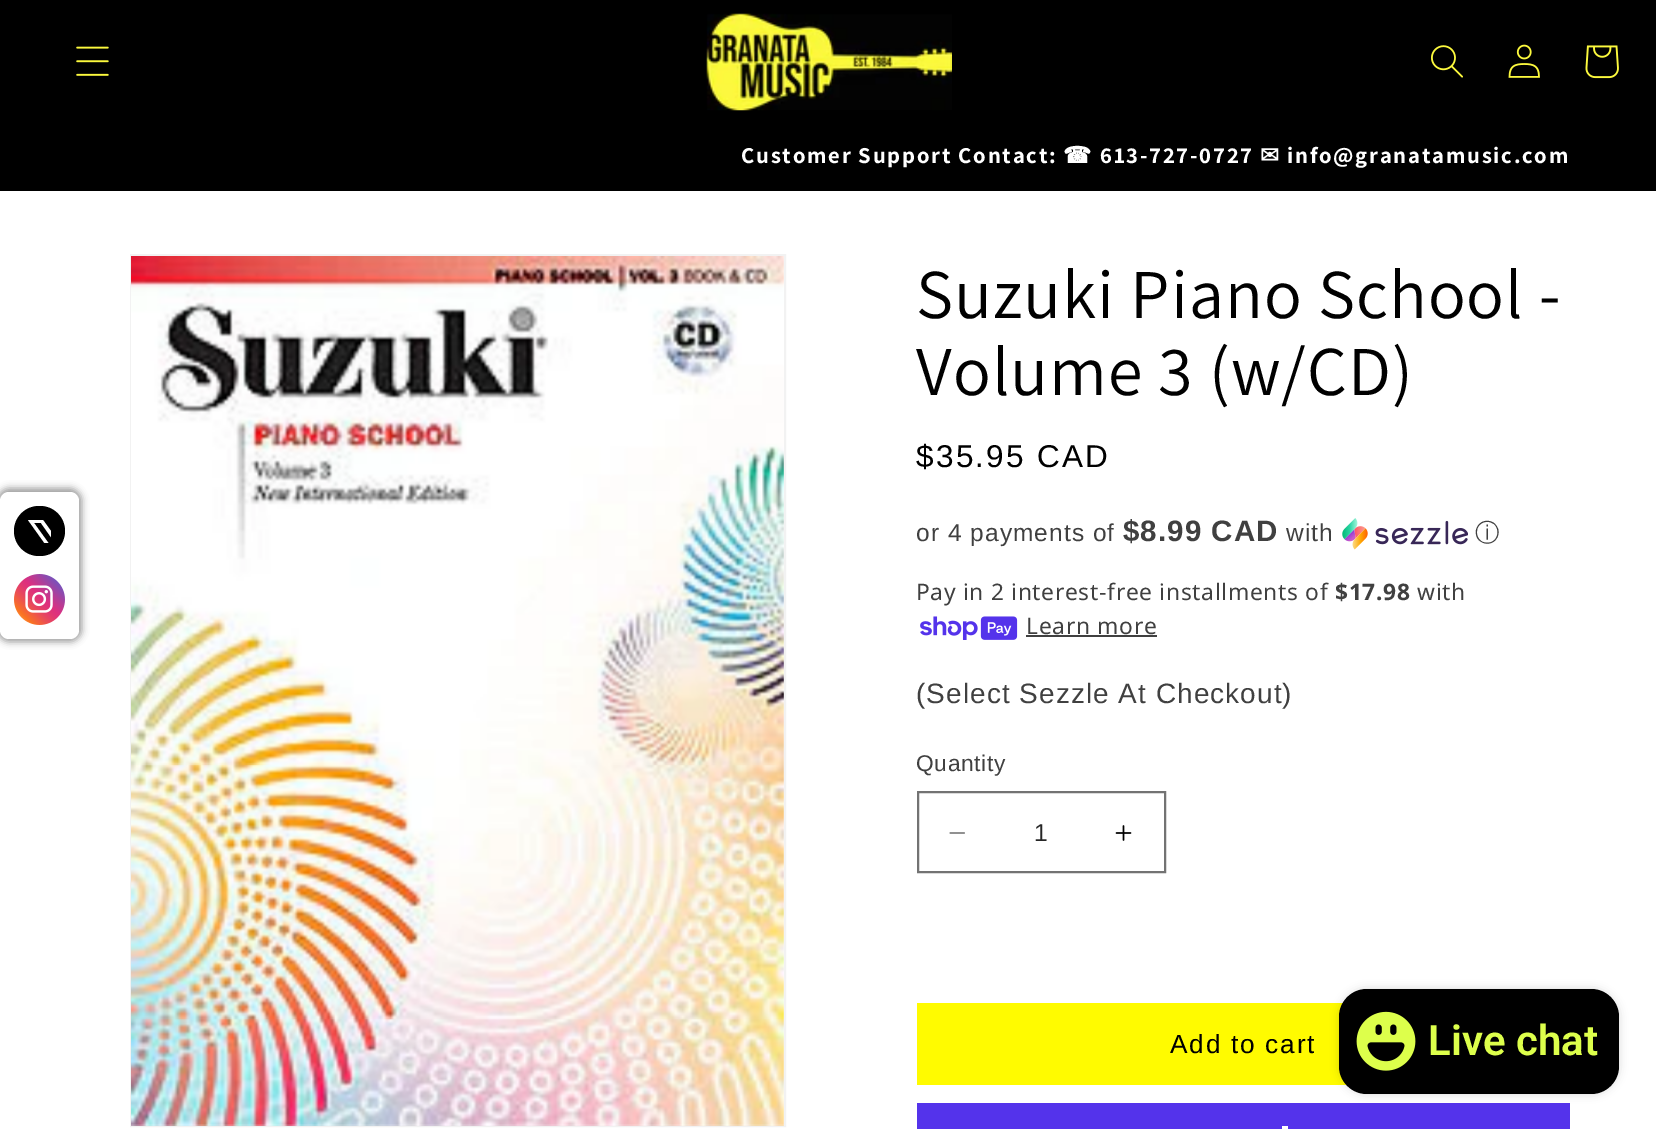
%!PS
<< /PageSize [1656 1129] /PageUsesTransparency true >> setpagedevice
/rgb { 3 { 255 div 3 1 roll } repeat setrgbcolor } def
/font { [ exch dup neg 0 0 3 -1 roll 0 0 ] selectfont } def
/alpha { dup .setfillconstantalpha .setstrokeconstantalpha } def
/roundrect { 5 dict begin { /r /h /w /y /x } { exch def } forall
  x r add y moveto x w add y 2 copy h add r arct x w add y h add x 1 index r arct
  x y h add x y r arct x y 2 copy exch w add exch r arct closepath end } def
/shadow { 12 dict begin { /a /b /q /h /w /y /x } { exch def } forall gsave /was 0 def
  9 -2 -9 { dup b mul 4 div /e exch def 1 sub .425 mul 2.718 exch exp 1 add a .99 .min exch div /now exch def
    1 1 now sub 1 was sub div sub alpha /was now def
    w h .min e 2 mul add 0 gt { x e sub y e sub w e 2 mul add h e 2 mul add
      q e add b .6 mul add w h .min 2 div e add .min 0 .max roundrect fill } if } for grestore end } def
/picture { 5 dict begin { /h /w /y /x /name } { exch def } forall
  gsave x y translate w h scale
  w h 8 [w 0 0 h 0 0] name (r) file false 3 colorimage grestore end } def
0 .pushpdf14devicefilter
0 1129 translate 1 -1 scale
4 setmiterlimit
255 255 255 rgb
0 0 1656 1129 rectfill
0 0 0 rgb
0 0 1656 191 rectfill
(img/1.rgb) 76 46 33 30 picture
(img/2.rgb) 706 13 246 98 picture
(img/3.rgb) 1431 45 32 33 picture
(img/4.rgb) 1508 44 32 34 picture
(img/5.rgb) 1585 45 34 34 picture
158 158 158 rgb
-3 488 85 154 12 3.5 1 shadow
255 255 255 rgb
0 492 79 147 9 roundrect fill
0 0 0 rgb
14 506 51 50 25 roundrect fill
gsave
28 520 23 23 rectclip
255 255 255 rgb
58 541 moveto 76 520 lineto 72 520 lineto 56 538 lineto 43 520 lineto 28 520 lineto 48 548 lineto 28 570 lineto 33 570 lineto 50 551 lineto 63 570 lineto 78 570 lineto closepath 52 548 moveto 34 523 lineto 41 523 lineto 72 567 lineto 65 567 lineto closepath fill
grestore
(img/6.rgb) 14 574 51 51 picture
242 242 242 rgb
2 setlinewidth
131 255 654 871 rectstroke
(img/7.rgb) 131 256 653 870 picture
(img/8.rgb) 1342 518 126 32 picture
(img/9.rgb) 920 616 98 24 picture
64 64 64 rgb
1026 635 131 2 rectfill
(img/10.rgb) 949 832 16 2 picture
(img/11.rgb) 1115 825 17 16 picture
115 115 115 rgb
918 792 247 80 rectstroke
[
  [917 1003 430 82 255 251 0]
  [917 1103 653 26 84 51 235]
  [1282 1126 6 3 255 255 255]
] { aload pop rgb rectfill } forall
0 0 0 rgb
1339 989 280 105 28 4.5 0.15 shadow
1339 989 280 105 28 roundrect fill
(img/12.rgb) 1356 1011 60 60 picture
/Assistant-Bold 22.75 font
255 255 255 rgb
741 163 moveto 1.75 0 (Customer Support Contact:) ashow
/DejaVuSans-Bold 22.75 font
1063 163 moveto 1.75 0 (☎) ashow
/Assistant-Bold 22.75 font
1100 163 moveto 1.75 0 (613-727-0727) ashow
/DejaVuSans-Bold 22.75 font
1260 163 moveto 1.75 0 (✉) ashow
/Assistant-Bold 22.75 font
1287 163 moveto 1.75 0 (info@granatamusic.com) ashow
/Assistant-Regular 70 font
0 0 0 rgb
916 318 moveto 1.05 0 (Suzuki Piano School -) ashow
916 395 moveto 1.05 0 (Volume 3 \(w/CD\)) ashow
/LiberationSans-Regular 31.5 font
916 467 moveto 2.25 0 ($35.95 CAD) ashow
/LiberationSans-Regular 24.5 font
64 64 64 rgb
916 541 moveto 1.05 0 (or 4 payments of) ashow
/LiberationSans-Bold 29.5 font
1123 541 moveto 1.05 0 ($8.99 CAD) ashow
/LiberationSans-Regular 24.5 font
1286 541 moveto 1.05 0 (with) ashow
/WenQuanYiZenHei-Medium 24.5 font
1475 541 moveto 1.05 0 (ⓘ) ashow
/NotoSans-Regular 22.75 font
916 600 moveto 0.7 0 (Pay in 2 interest-free installments of) ashow
/NotoSans-Bold 22.75 font
1335 600 moveto 0.7 0 ($17.98) ashow
/NotoSans-Regular 22.75 font
1417 600 moveto 0.7 0 (with) ashow
1026 634 moveto 0.7 0 (Learn more) ashow
/LiberationSans-Regular 28 font
916 703 moveto 1.05 0 (\(Select Sezzle At Checkout\)) ashow
/LiberationSans-Regular 22.75 font
916 771 moveto 0.7 0 (Quantity) ashow
/LiberationSans-Regular 24.5 font
38 38 38 rgb
1034 841 moveto (1) show
/LiberationSans-Regular 26.25 font
0 0 0 rgb
1170 1053 moveto 1.75 0 (Add to cart) ashow
/Roboto-SemiBold 42 font
221 255 75 rgb
1428 1055 moveto (Live chat) show
.poppdf14devicefilter showpage
